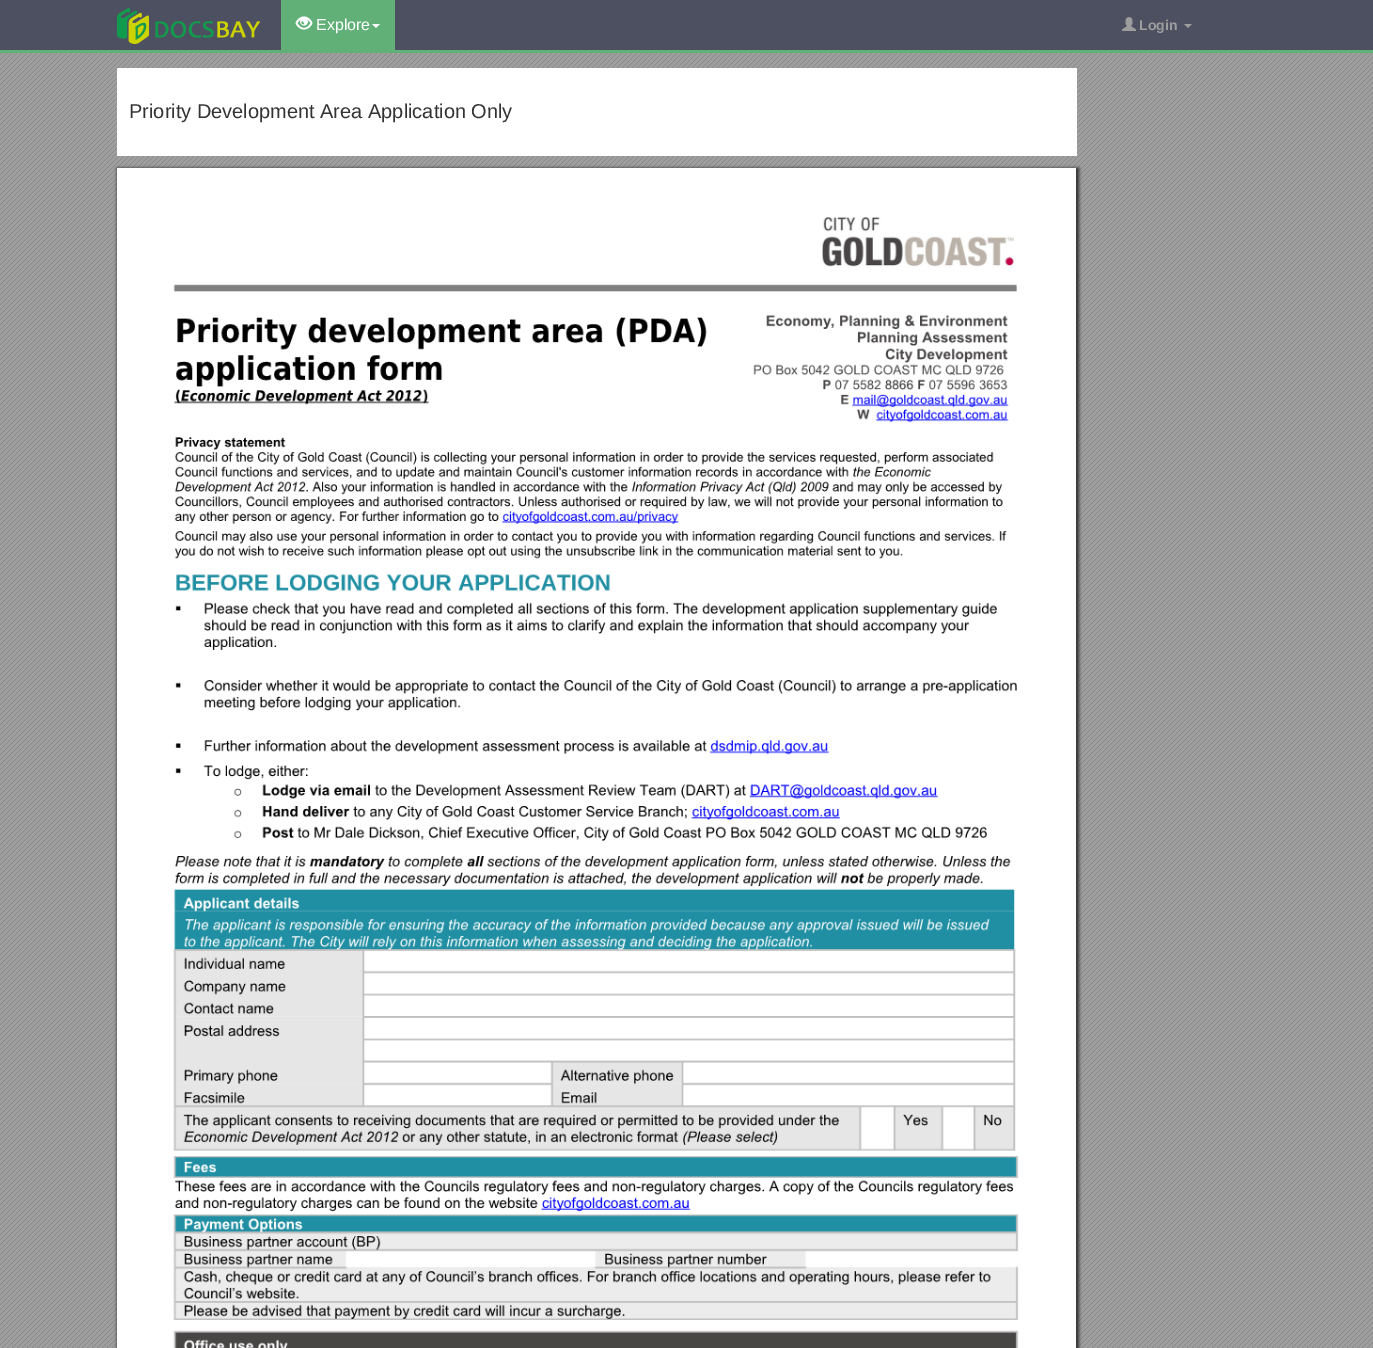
%!PS
<< /PageSize [1373 1348] /PageUsesTransparency true >> setpagedevice
/rgb { 3 { 255 div 3 1 roll } repeat setrgbcolor } def
/font { [ exch dup neg 0 0 3 -1 roll 0 0 ] selectfont } def
/alpha { dup .setfillconstantalpha .setstrokeconstantalpha } def
/roundrect { 5 dict begin { /r /h /w /y /x } { exch def } forall
  x r add y moveto x w add y 2 copy h add r arct x w add y h add x 1 index r arct
  x y h add x y r arct x y 2 copy exch w add exch r arct closepath end } def
/shadow { 12 dict begin { /a /b /q /h /w /y /x } { exch def } forall gsave /was 0 def
  9 -2 -9 { dup b mul 4 div /e exch def 1 sub .425 mul 2.718 exch exp 1 add a .99 .min exch div /now exch def
    1 1 now sub 1 was sub div sub alpha /was now def
    w h .min e 2 mul add 0 gt { x e sub y e sub w e 2 mul add h e 2 mul add
      q e add b .6 mul add w h .min 2 div e add .min 0 .max roundrect fill } if } for grestore end } def
/picture { 5 dict begin { /h /w /y /x /name } { exch def } forall
  gsave x y translate w h scale
  w h 8 [w 0 0 h 0 0] name (r) file false 3 colorimage grestore end } def
0 .pushpdf14devicefilter
0 1348 translate 1 -1 scale
4 setmiterlimit
255 255 255 rgb
0 0 1373 1348 rectfill
(img/1.rgb) 0 53 1373 1295 picture
77 80 97 rgb
0 0 1373 50 rectfill
96 176 120 rgb
0 50 1373 3 rectfill
(img/2.rgb) 117 8 143 36 picture
281 0 114 50 rectfill
(img/3.rgb) 295 16 18 14 picture
255 255 255 rgb
372 24 moveto 380 24 lineto 376 28 lineto closepath fill
(img/4.rgb) 1122 17 14 14 picture
157 157 157 rgb
1184 24 moveto 1192 24 lineto 1188 28 lineto closepath fill
255 255 255 rgb
117 68 960 88 rectfill
(img/5.rgb) 1076 168 1 1180 picture
51 51 51 rgb
117 168 962 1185 0 1.5 1 shadow
(img/6.rgb) 117 168 959 1180 picture
/LiberationSans-Regular 16 font
255 255 255 rgb
316 30 moveto (Explore) show
/LiberationSans-Bold 14 font
157 157 157 rgb
1139 30 moveto (Login) show
/LiberationSans-Regular 20 font
51 51 51 rgb
129 118 moveto (Priority Development Area Application Only) show
.poppdf14devicefilter showpage
